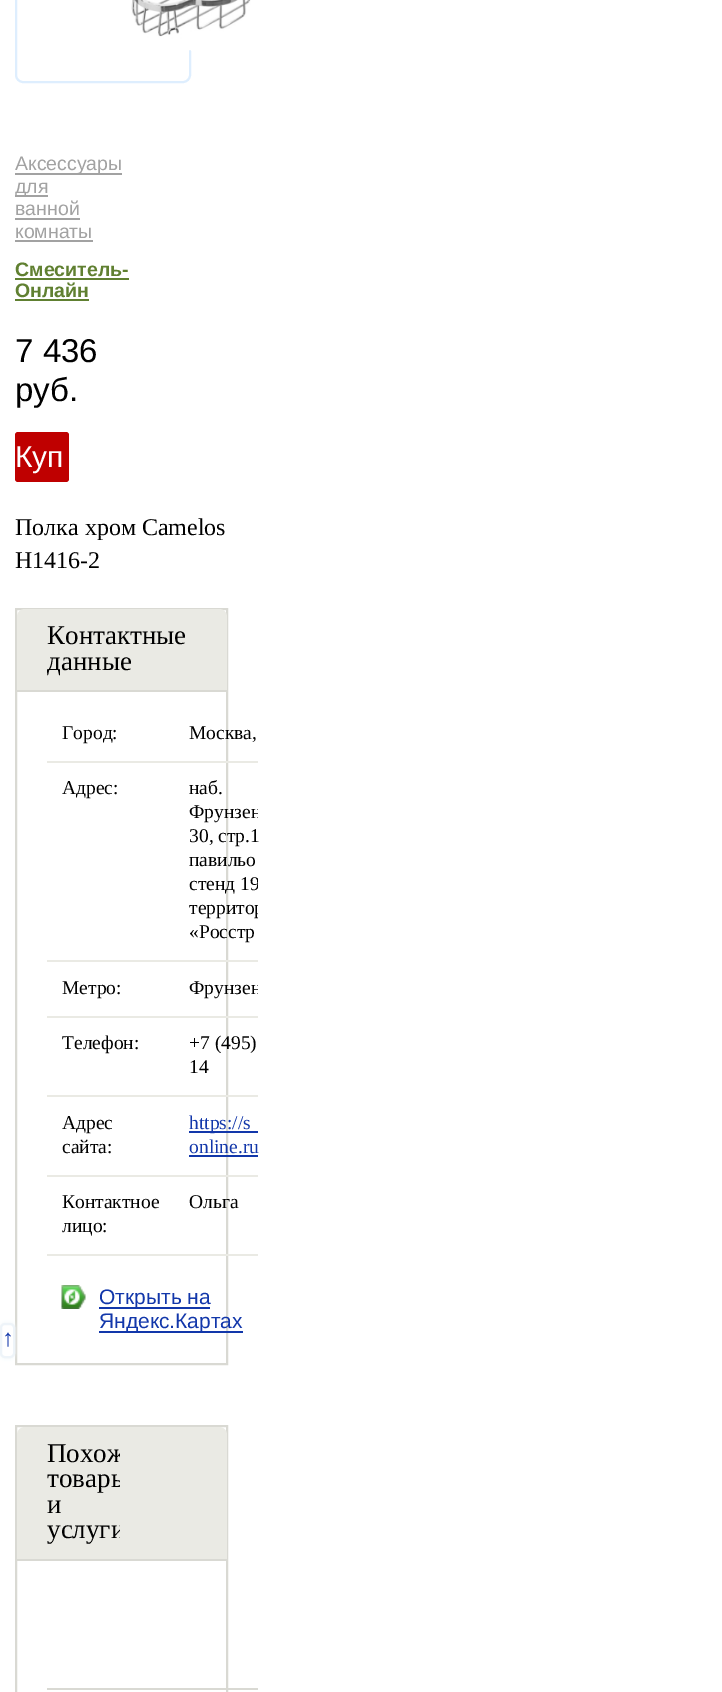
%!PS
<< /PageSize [722 1692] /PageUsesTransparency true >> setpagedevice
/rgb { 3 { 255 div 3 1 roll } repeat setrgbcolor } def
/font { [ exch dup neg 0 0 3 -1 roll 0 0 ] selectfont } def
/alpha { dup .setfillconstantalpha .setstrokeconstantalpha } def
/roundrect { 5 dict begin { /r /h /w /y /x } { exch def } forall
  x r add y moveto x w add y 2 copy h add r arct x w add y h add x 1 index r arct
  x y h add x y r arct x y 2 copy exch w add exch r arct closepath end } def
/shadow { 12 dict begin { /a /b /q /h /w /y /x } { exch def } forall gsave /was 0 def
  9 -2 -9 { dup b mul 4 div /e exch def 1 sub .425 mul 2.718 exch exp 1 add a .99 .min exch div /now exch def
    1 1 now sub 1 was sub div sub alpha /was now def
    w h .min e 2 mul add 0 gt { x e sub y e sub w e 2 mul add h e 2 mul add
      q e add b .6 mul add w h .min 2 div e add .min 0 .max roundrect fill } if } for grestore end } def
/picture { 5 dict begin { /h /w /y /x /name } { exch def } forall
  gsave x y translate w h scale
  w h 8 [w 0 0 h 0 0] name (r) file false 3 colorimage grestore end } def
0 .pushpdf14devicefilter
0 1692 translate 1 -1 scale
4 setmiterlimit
255 255 255 rgb
0 0 722 1692 rectfill
217 217 211 rgb
2 setlinewidth
16 609 211 755 rectstroke
gsave
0 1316 moveto 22 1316 lineto 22 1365 lineto 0 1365 lineto closepath 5 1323 moveto 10 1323 lineto 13 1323 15 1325 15 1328 curveto 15 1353 lineto 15 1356 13 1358 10 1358 curveto 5 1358 lineto 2 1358 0 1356 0 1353 curveto 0 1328 lineto 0 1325 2 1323 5 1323 curveto closepath eoclip newpath
238 244 249 rgb
0 1323 15 35 5 2 1 shadow
grestore
238 244 249 rgb
1 1324 13 33 4 roundrect stroke
222 238 254 rgb
16 -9 174 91 7 roundrect stroke
(img/1.rgb) 131 0 120 51 picture
[
  [15 173 107 2 162 162 162]
  [15 195 33 2 162 162 162]
  [15 218 65 2 162 162 162]
  [15 240 78 2 162 162 162]
  [15 278 114 2 96 128 49]
  [15 299 74 2 96 128 49]
] { aload pop rgb rectfill } forall
191 0 0 rgb
15 432 54 50 3 roundrect fill
234 234 228 rgb
25 609 moveto 219 609 lineto 223.5 609 227 612.5 227 617 curveto 227 692 lineto 17 692 lineto 17 617 lineto 17 612.5 20.5 609 25 609 curveto closepath fill
[
  [17 690 210 2 217 217 211]
  [47 761 211 2 234 234 228]
  [47 960 211 2 234 234 228]
  [47 1016 211 2 234 234 228]
  [47 1095 211 2 234 234 228]
  [47 1175 211 2 234 234 228]
  [189 1131 69 2 18 55 170]
  [189 1155 69 2 18 55 170]
  [47 1254 211 2 234 234 228]
] { aload pop rgb rectfill } forall
(img/2.rgb) 61 1285 25 24 picture
18 55 170 rgb
99 1307 111 2 rectfill
99 1331 144 2 rectfill
217 217 211 rgb
16 1426 211 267 rectstroke
234 234 228 rgb
25 1427 moveto 219 1427 lineto 223.5 1427 227 1430.5 227 1435 curveto 227 1560 lineto 17 1560 lineto 17 1435 lineto 17 1430.5 20.5 1427 25 1427 curveto closepath fill
217 217 211 rgb
17 1559 210 2 rectfill
47 1688 211 2 rectfill
/LiberationSans-Regular 24 font
18 55 170 rgb
2 1346 moveto (↑) show
/LiberationSans-Regular 19.5 font
162 162 162 rgb
[
  [(Аксессуары) 15 170]
  [(для) 15 193]
  [(ванной) 15 215]
  [(комнаты) 15 238]
] { aload pop moveto show } forall
/LiberationSans-Bold 19.5 font
96 128 49 rgb
15 276 moveto (Смеситель-) show
15 297 moveto (Онлайн) show
/LiberationSans-Regular 33 font
0 0 0 rgb
15 362 moveto (7 436) show
15 401 moveto (руб.) show
/LiberationSans-Regular 30 font
255 255 255 rgb
15 467 moveto (Куп) show
/LiberationSerif-Regular 24 font
0 0 0 rgb
15 535 moveto (Полка хром Camelos) show
15 568 moveto (H1416-2) show
/LiberationSerif-Regular 27 font
47 644 moveto (Контактные) show
47 670 moveto (данные) show
/LiberationSerif-Regular 19.5 font
[
  [(Город:) 62 739]
  [(Москва,) 189 739]
  [(Адрес:) 62 794]
  [(наб.) 189 794]
] { aload pop moveto show } forall
gsave
15 0 243 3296 rectclip
189 818 moveto (Фрунзен) show
grestore
189 842 moveto (30, стр.1) show
189 866 moveto (павильо) show
gsave
15 0 243 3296 rectclip
189 890 moveto (стенд 19) show
189 914 moveto (территор) show
grestore
189 938 moveto («Росстр) show
62 994 moveto (Метро:) show
gsave
15 0 243 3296 rectclip
189 994 moveto (Фрунзен) show
grestore
[
  [(Телефон:) 62 1049]
  [(+7 \(495\)) 189 1049]
  [(14) 189 1073]
  [(Адрес) 62 1129]
  [(сайта:) 62 1153]
] { aload pop moveto show } forall
18 55 170 rgb
189 1129 moveto (https://s) show
189 1153 moveto (online.ru) show
0 0 0 rgb
[
  [(Контактное) 62 1208]
  [(лицо:) 62 1232]
  [(Ольга) 189 1208]
] { aload pop moveto show } forall
/LiberationSans-Regular 21 font
18 55 170 rgb
99 1304 moveto (Открыть на) show
99 1328 moveto (Яндекс.Картах) show
gsave
47 1442 73 102 rectclip
/LiberationSerif-Regular 27 font
0 0 0 rgb
47 1462 moveto (Похож) show
47 1487 moveto (товары) show
grestore
/LiberationSerif-Regular 27 font
0 0 0 rgb
47 1513 moveto (и) show
gsave
47 1442 73 102 rectclip
47 1538 moveto (услуги) show
grestore
.poppdf14devicefilter showpage
